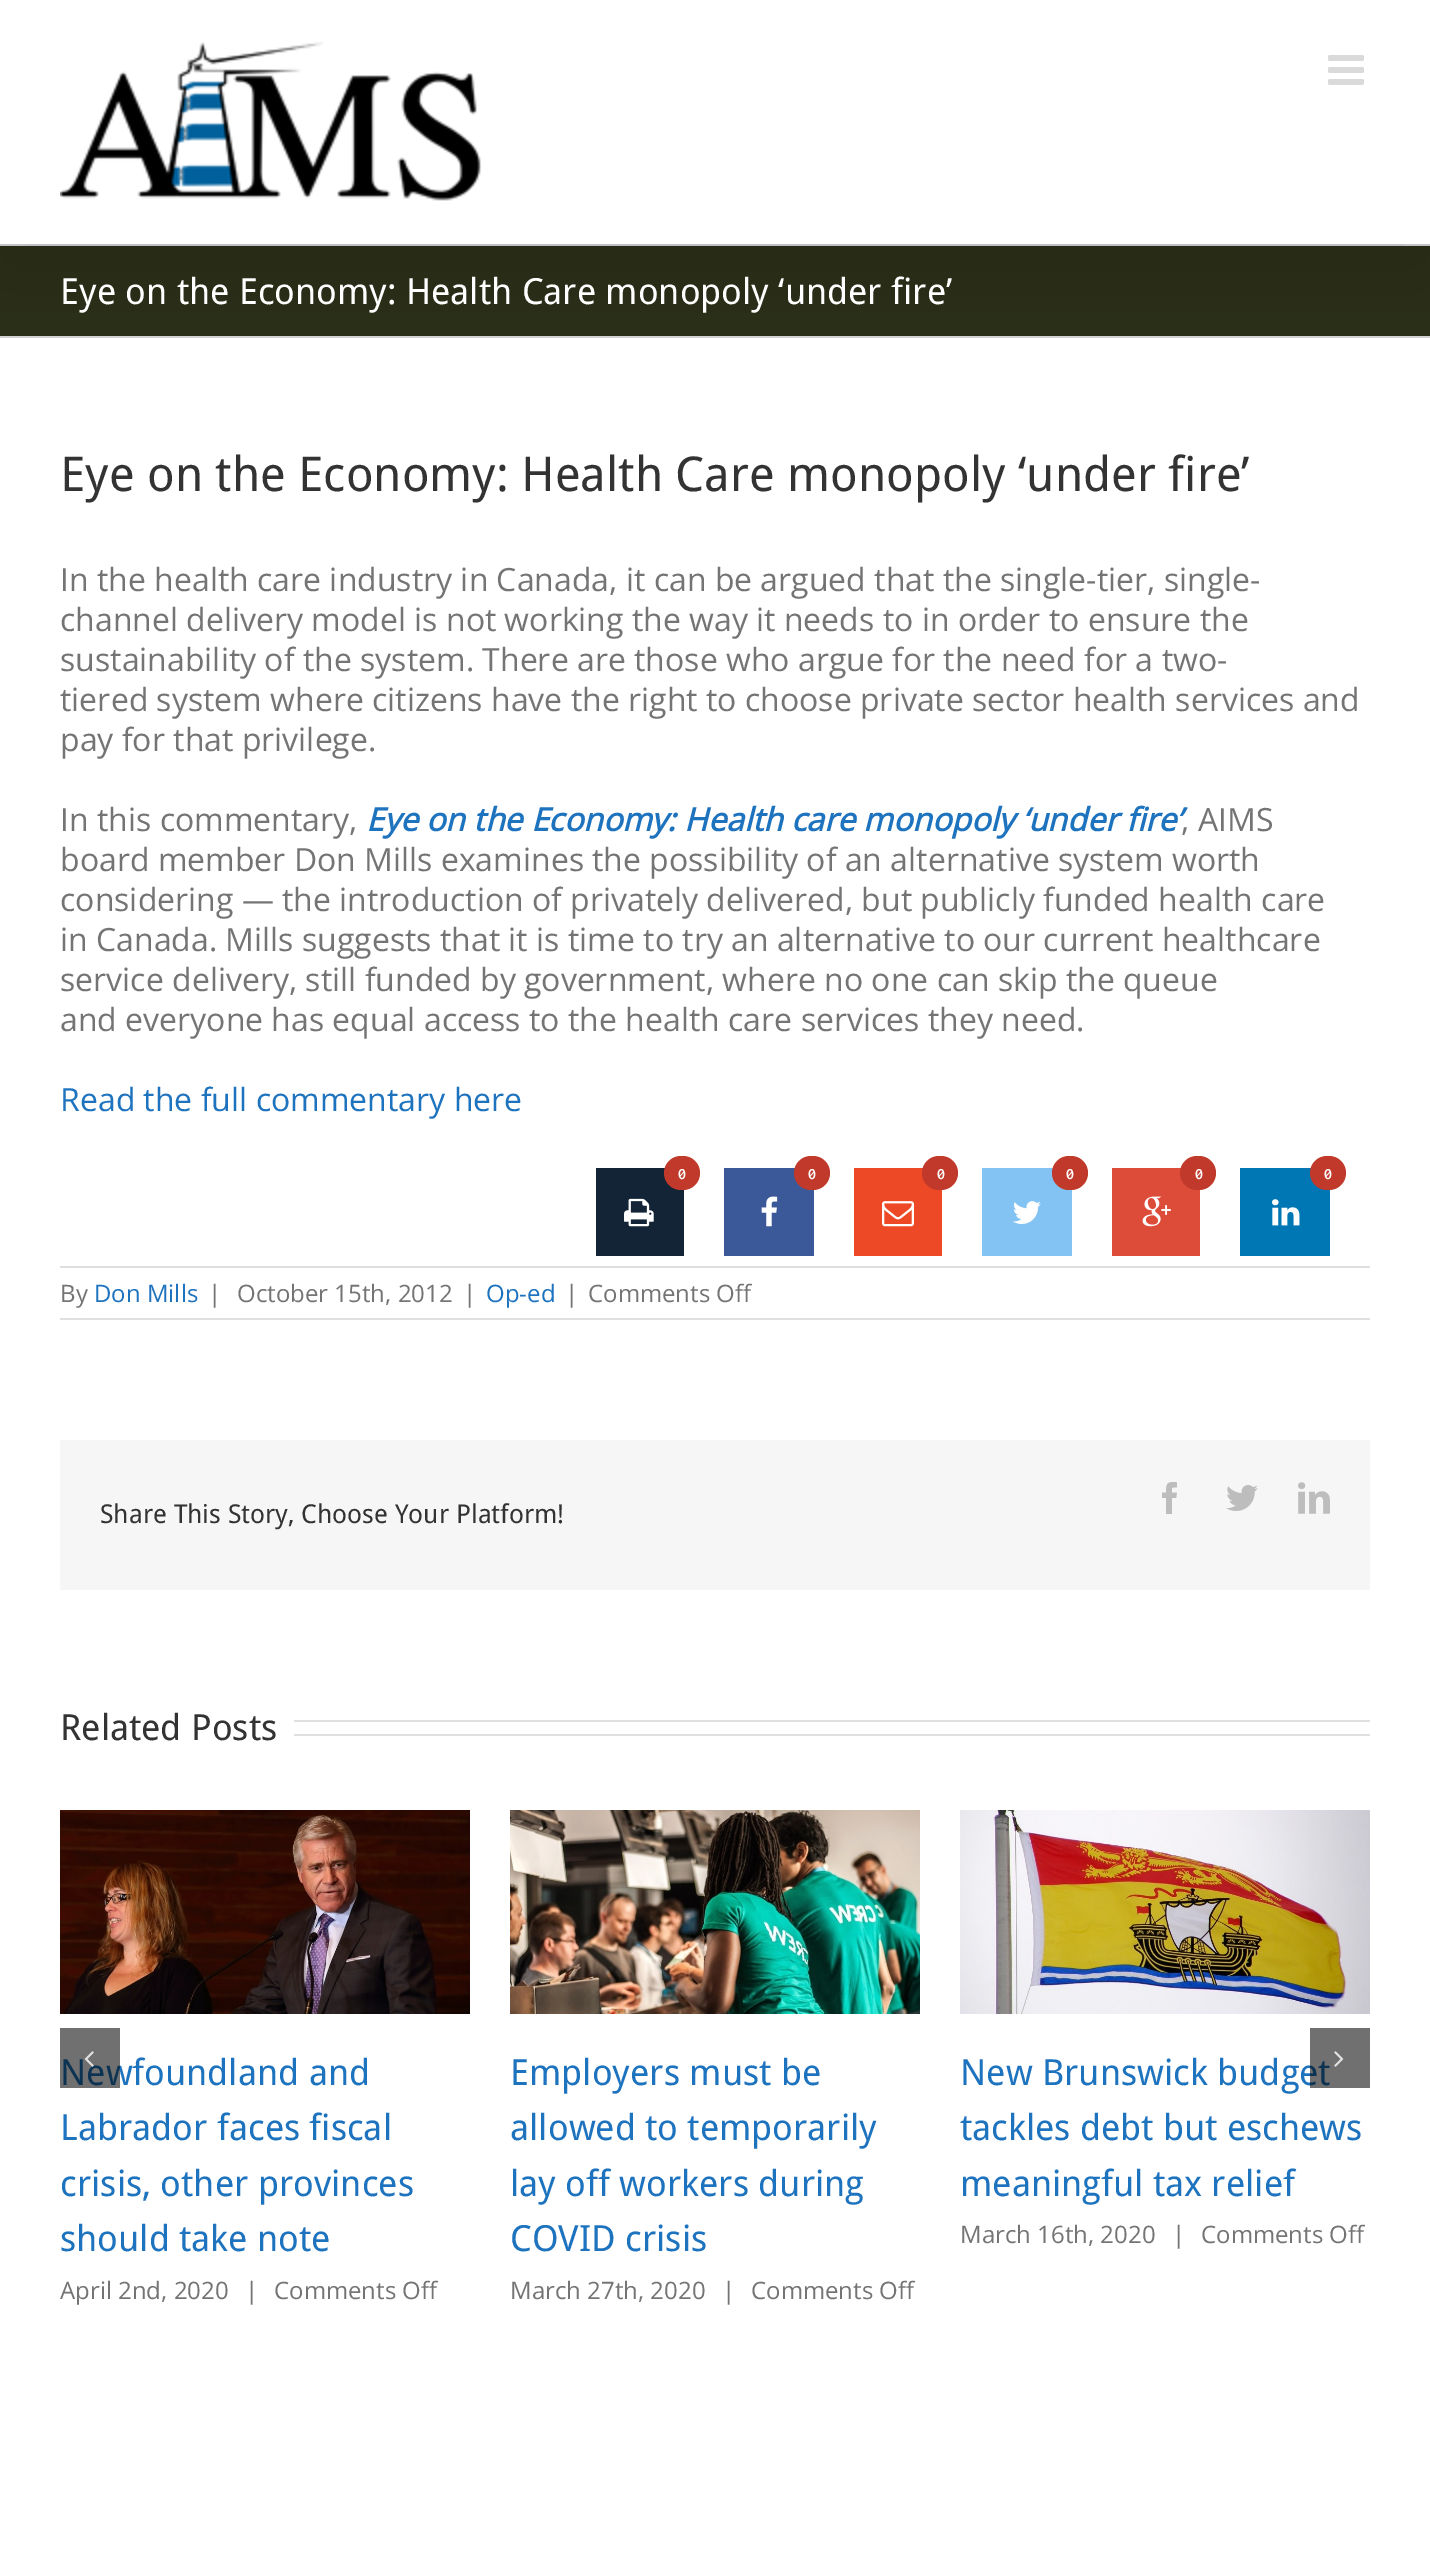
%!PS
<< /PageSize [1430 2550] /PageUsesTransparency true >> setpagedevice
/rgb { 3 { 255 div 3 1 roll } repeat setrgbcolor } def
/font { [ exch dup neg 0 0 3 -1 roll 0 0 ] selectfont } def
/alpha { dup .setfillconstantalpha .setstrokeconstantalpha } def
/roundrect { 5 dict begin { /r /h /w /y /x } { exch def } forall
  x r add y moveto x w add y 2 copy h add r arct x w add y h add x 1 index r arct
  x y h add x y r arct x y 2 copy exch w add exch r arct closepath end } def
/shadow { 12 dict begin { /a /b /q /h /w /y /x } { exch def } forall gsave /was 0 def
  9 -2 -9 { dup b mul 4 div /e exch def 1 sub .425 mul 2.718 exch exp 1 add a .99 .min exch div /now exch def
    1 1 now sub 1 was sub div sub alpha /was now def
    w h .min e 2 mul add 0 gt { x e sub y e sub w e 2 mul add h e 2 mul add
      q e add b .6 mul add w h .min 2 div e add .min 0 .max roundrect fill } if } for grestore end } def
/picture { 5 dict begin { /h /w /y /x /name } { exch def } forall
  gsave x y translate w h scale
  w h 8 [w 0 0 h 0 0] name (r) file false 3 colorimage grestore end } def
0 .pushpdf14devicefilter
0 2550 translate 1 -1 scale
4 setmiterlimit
255 255 255 rgb
0 0 1430 2550 rectfill
[
  [0 246 1430 90 42 47 24]
  [0 244 1430 2 210 211 212]
  [0 336 1430 2 210 211 212]
] { aload pop rgb rectfill } forall
gsave
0 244 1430 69 rectclip
0 0 0 rgb
4 24 1422 236 0 50 0.14 shadow
grestore
(img/1.rgb) 60 42 421 159 picture
(img/2.rgb) 1328 55 36 30 picture
18 36 53 rgb
596 1168 88 88 rectfill
192 57 43 rgb
664 1156 36 34 17 roundrect fill
(img/3.rgb) 624 1198 30 29 picture
59 89 152 rgb
724 1168 90 88 rectfill
192 57 43 rgb
794 1156 36 34 17 roundrect fill
(img/4.rgb) 761 1196 17 31 picture
237 73 38 rgb
854 1168 88 88 rectfill
192 57 43 rgb
922 1156 36 34 17 roundrect fill
(img/5.rgb) 882 1201 32 26 picture
131 195 243 rgb
982 1168 90 88 rectfill
192 57 43 rgb
1052 1156 36 34 17 roundrect fill
(img/6.rgb) 1013 1201 28 23 picture
221 75 57 rgb
1112 1168 88 88 rectfill
192 57 43 rgb
1180 1156 36 34 17 roundrect fill
(img/7.rgb) 1142 1196 29 31 picture
0 119 181 rgb
1240 1168 90 88 rectfill
192 57 43 rgb
1310 1156 36 34 17 roundrect fill
(img/8.rgb) 1272 1199 28 27 picture
[
  [60 1266 1310 2 224 222 222]
  [60 1318 1310 2 224 222 222]
  [60 1440 1310 150 246 246 246]
] { aload pop rgb rectfill } forall
(img/9.rgb) 1162 1482 15 32 picture
(img/10.rgb) 1226 1485 32 26 picture
(img/11.rgb) 1298 1482 32 32 picture
224 222 222 rgb
294 1720 1076 2 rectfill
294 1734 1076 2 rectfill
(img/14.rgb) 60 1810 410 204 picture
(img/15.rgb) 510 1810 410 204 picture
(img/16.rgb) 960 1810 410 204 picture
/DroidSans-Regular 36 font
255 255 255 rgb
60 304 moveto (Eye on the Economy: Health Care monopoly ‘under fire’) show
/DroidSans-Regular 48 font
51 51 51 rgb
60 491 moveto (Eye on the Economy: Health Care monopoly ‘under fire’) show
/OpenSans-Regular 32 font
116 116 116 rgb
[
  [(In the health care industry in Canada, it can be argued that the single-tier, single-) 60 591]
  [(channel delivery model is not working the way it needs to in order to ensure the) 60 631]
  [(sustainability of the system. There are those who argue for the need for a two-) 60 671]
  [(tiered system where citizens have the right to choose private sector health services and) 60 711]
  [(pay for that privilege.) 60 751]
  [(In this commentary,) 60 831]
] { aload pop moveto show } forall
/OpenSans-BoldItalic 32 font
30 115 190 rgb
366 831 moveto (Eye on the Economy: Health care monopoly ‘under fire’) show
/OpenSans-Regular 32 font
116 116 116 rgb
[
  [(, AIMS) 1181 831]
  [(board member Don Mills examines the possibility of an alternative system worth) 60 871]
  [(considering — the introduction of privately delivered, but publicly funded health care) 60 911]
  [(in Canada. Mills suggests that it is time to try an alternative to our current healthcare) 60 951]
  [(service delivery, still funded by government, where no one can skip the queue) 60 991]
  [(and everyone has equal access to the health care services they need.) 60 1031]
] { aload pop moveto show } forall
30 115 190 rgb
60 1111 moveto (Read the full commentary here) show
/Inconsolata-Bold 16 font
255 255 255 rgb
[
  [(0) 678 1179]
  [(0) 808 1179]
  [(0) 937 1179]
  [(0) 1066 1179]
  [(0) 1195 1179]
  [(0) 1324 1179]
] { aload pop moveto show } forall
/OpenSans-Regular 24 font
116 116 116 rgb
60 1302 moveto (By) show
30 115 190 rgb
94 1302 moveto (Don Mills) show
116 116 116 rgb
[
  [(|) 208 1302]
  [(October 15th, 2012) 237 1302]
  [(|) 463 1302]
] { aload pop moveto show } forall
30 115 190 rgb
486 1302 moveto (Op-ed) show
116 116 116 rgb
565 1302 moveto (|) show
588 1302 moveto (Comments Off) show
/DroidSans-Regular 26 font
51 51 51 rgb
100 1523 moveto (Share This Story, Choose Your Platform!) show
/DroidSans-Regular 36 font
60 1740 moveto (Related Posts) show
30 115 190 rgb
60 2085 moveto (Newfoundland and) show
0.56 alpha
0 0 0 rgb
60 2028 60 60 rectfill
1 alpha
(img/12.rgb) 84 2051 10 16 picture
30 115 190 rgb
[
  [(Labrador faces fiscal) 60 2140]
  [(crisis, other provinces) 60 2196]
  [(should take note) 60 2251]
] { aload pop moveto show } forall
/OpenSans-Regular 24 font
116 116 116 rgb
[
  [(April 2nd, 2020) 60 2299]
  [(|) 245 2299]
  [(Comments Off) 274 2299]
] { aload pop moveto show } forall
/DroidSans-Regular 36 font
30 115 190 rgb
[
  [(Employers must be) 510 2085]
  [(allowed to temporarily) 510 2140]
  [(lay off workers during) 510 2196]
  [(COVID crisis) 510 2251]
] { aload pop moveto show } forall
/OpenSans-Regular 24 font
116 116 116 rgb
[
  [(March 27th, 2020) 510 2299]
  [(|) 722 2299]
  [(Comments Off) 751 2299]
] { aload pop moveto show } forall
/DroidSans-Regular 36 font
30 115 190 rgb
960 2085 moveto (New Brunswick budget) show
0.56 alpha
0 0 0 rgb
1310 2028 60 60 rectfill
1 alpha
(img/13.rgb) 1334 2051 10 16 picture
30 115 190 rgb
960 2140 moveto (tackles debt but eschews) show
960 2196 moveto (meaningful tax relief) show
/OpenSans-Regular 24 font
116 116 116 rgb
[
  [(March 16th, 2020) 960 2243]
  [(|) 1172 2243]
  [(Comments Off) 1201 2243]
] { aload pop moveto show } forall
.poppdf14devicefilter showpage
